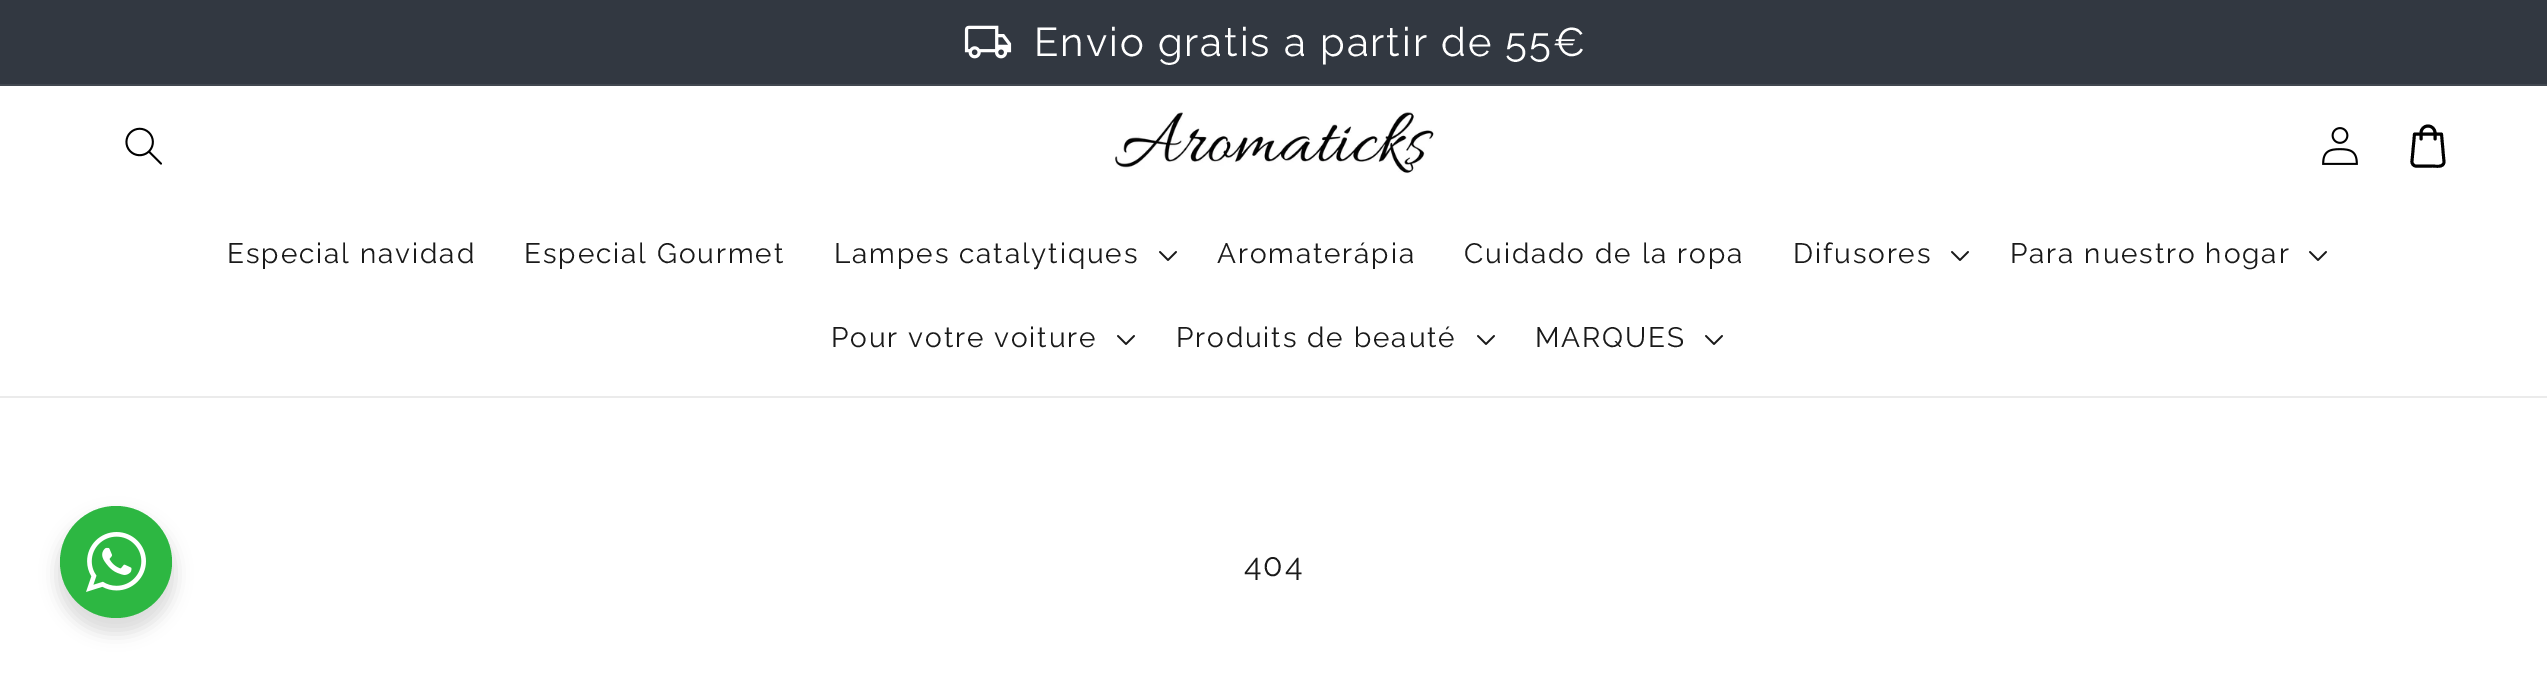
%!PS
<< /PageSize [2547 677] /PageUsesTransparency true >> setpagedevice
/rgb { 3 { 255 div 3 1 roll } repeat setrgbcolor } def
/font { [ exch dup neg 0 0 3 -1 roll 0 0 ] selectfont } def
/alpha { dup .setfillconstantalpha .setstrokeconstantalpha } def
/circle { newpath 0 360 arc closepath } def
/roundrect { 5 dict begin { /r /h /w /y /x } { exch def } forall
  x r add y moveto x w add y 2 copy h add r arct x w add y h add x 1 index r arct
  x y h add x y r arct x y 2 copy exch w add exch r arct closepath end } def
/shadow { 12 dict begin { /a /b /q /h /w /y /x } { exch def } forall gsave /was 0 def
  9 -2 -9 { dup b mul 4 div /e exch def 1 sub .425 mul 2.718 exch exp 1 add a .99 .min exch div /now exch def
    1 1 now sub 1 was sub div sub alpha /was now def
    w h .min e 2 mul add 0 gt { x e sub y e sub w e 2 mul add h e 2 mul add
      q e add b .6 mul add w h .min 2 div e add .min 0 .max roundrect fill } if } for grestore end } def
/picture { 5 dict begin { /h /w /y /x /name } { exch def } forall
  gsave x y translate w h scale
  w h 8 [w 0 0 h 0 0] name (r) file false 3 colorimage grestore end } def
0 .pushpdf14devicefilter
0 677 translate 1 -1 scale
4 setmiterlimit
255 255 255 rgb
0 0 2547 677 rectfill
50 56 65 rgb
0 0 2547 84 rectfill
66 72 80 rgb
0 84 2547 2 rectfill
(img/1.rgb) 964 25 48 34 picture
235 235 235 rgb
0 396 2547 2 rectfill
(img/2.rgb) 125 127 37 38 picture
(img/3.rgb) 1115 111 319 63 picture
(img/4.rgb) 2322 127 36 38 picture
0 0 0 rgb
2.9 setlinewidth
1 setlinecap
1 setlinejoin
2414.5 134 moveto 2441.5 134 lineto 2444 162 lineto 2443.5 168 2435.5 166 2432 166 curveto 2416 166 lineto 2413.5 166 2411.5 163.5 2412 161 curveto closepath 2421 139 moveto 2421 133 lineto 2421 129 2424 126 2428 126 curveto 2432 126 2435 129 2435 133 curveto 2435 139 lineto stroke
(img/5.rgb) 1159 251 18 10 picture
(img/5.rgb) 1951 251 18 10 picture
(img/5.rgb) 2309 251 18 10 picture
(img/5.rgb) 1117 335 18 10 picture
(img/5.rgb) 1477 335 18 10 picture
(img/5.rgb) 1705 335 18 10 picture
56 514 120 120 60 8 0.14 shadow
45 183 66 rgb
116 562 56 circle fill
(img/6.rgb) 86 532 60 60 picture
/Raleway-Regular 40 font
255 255 255 rgb
1034 56 moveto 2 0 (Envio gratis a partir de 55€) ashow
/Raleway-Regular 28 font
26 26 26 rgb
227 263 moveto 1.9 0 (Especial navidad) ashow
524 263 moveto 1.9 0 (Especial Gourmet) ashow
834 263 moveto 1.9 0 (Lampes catalytiques) ashow
1217 263 moveto 1.9 0 (Aromaterápia) ashow
1464 263 moveto 1.9 0 (Cuidado de la ropa) ashow
1793 263 moveto 1.9 0 (Difusores) ashow
2010 263 moveto 1.9 0 (Para nuestro hogar) ashow
831 347 moveto 1.9 0 (Pour votre voiture) ashow
1176 347 moveto 1.9 0 (Produits de beauté) ashow
1535 347 moveto 1.9 0 (MARQUES) ashow
/Raleway-Regular 32 font
1244 576 moveto 1.9 0 (404) ashow
.poppdf14devicefilter showpage
